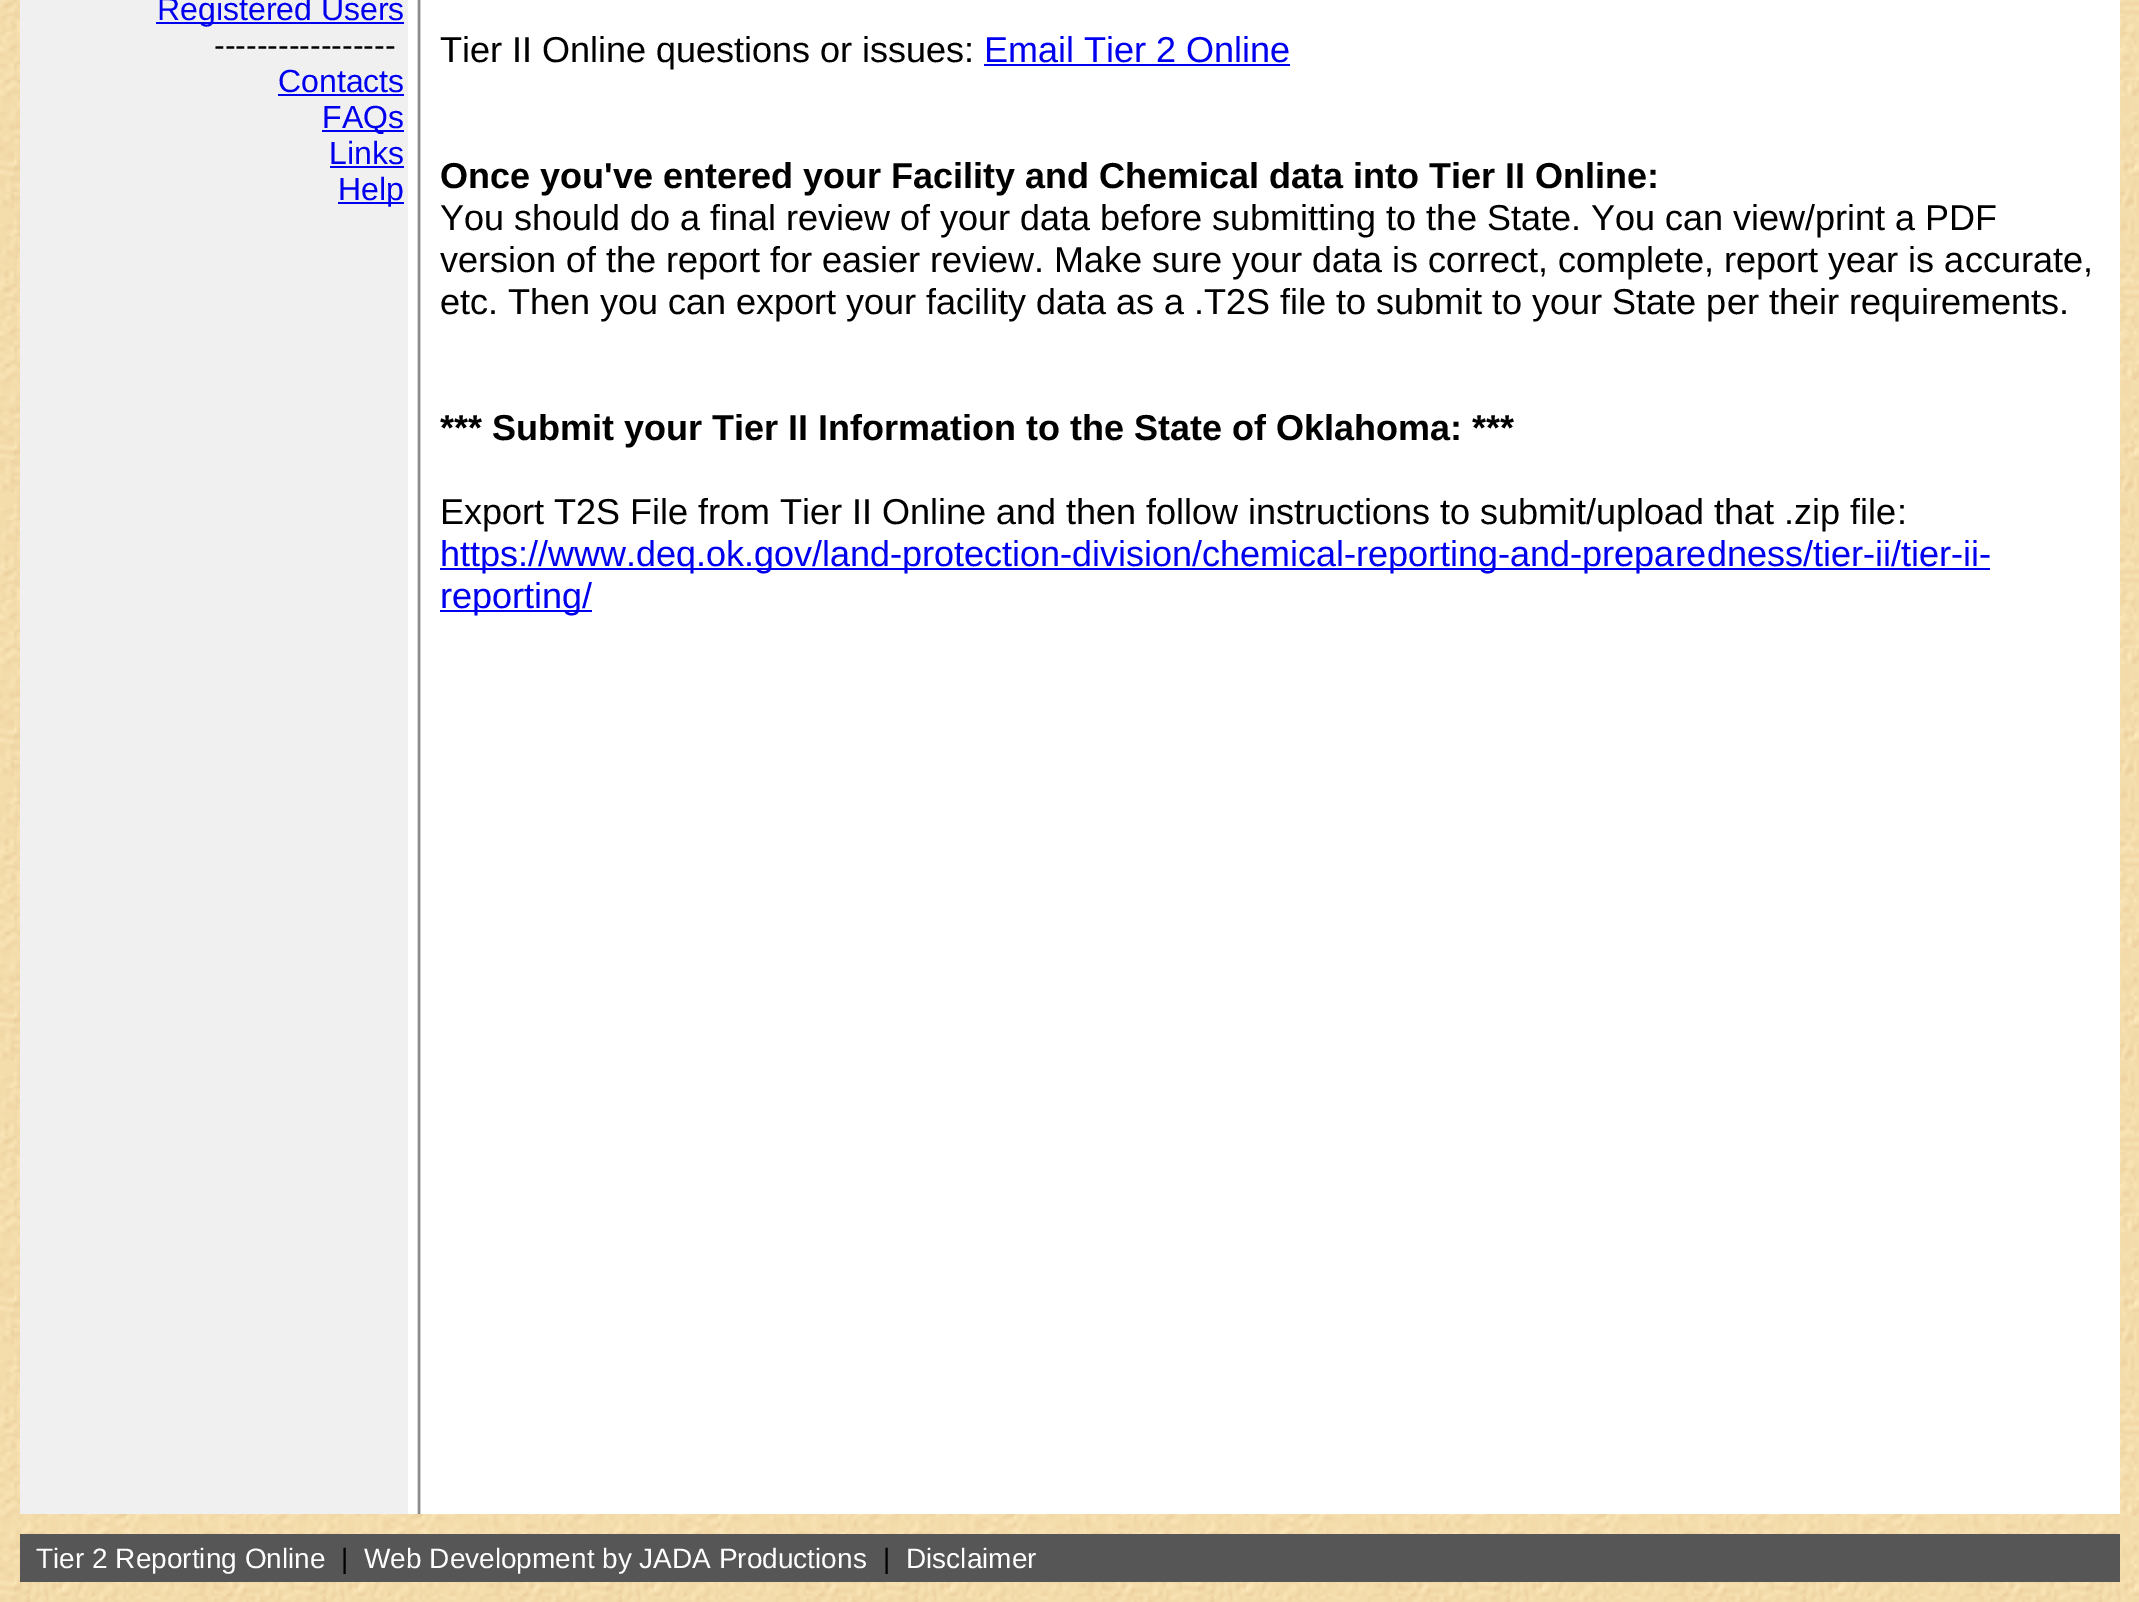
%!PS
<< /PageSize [2139 1602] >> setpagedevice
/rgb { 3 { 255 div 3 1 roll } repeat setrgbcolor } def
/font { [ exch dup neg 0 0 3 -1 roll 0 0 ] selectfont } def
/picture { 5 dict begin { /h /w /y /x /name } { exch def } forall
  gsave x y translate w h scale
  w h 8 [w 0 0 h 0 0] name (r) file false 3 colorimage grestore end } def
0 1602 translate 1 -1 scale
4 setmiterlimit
255 255 255 rgb
0 0 2139 1602 rectfill
(img/1.rgb) 0 0 2139 1602 picture
[
  [20 0 388 1514 240 240 240]
  [156 22 248 2 0 0 238]
  [278 94 126 2 0 0 238]
  [322 130 82 2 0 0 238]
  [330 166 74 2 0 0 238]
  [338 202 66 2 0 0 238]
] { aload pop rgb rectfill } forall
(img/2.rgb) 408 0 28 1514 picture
[
  [436 0 1684 1514 255 255 255]
  [984 64 306 2 0 0 238]
  [440 568 1550 2 0 0 238]
  [440 610 152 2 0 0 238]
  [20 1534 2100 48 86 86 86]
] { aload pop rgb rectfill } forall
/LiberationSans-Regular 32 font
0 0 238 rgb
157 20 moveto (Registered Users) show
0 0 0 rgb
214 56 moveto (-----------------) show
0 0 238 rgb
[
  [(Contacts) 278 92]
  [(FAQs) 322 128]
  [(Links) 329 164]
  [(Help) 338 200]
] { aload pop moveto show } forall
/LiberationSans-Regular 36 font
0 0 0 rgb
440 62 moveto (Tier II Online questions or issues:) show
0 0 238 rgb
984 62 moveto (Email Tier 2 Online) show
/LiberationSans-Bold 36 font
0 0 0 rgb
440 188 moveto (Once you've entered your Facility and Chemical data into Tier II Online:) show
/LiberationSans-Regular 36 font
[
  [(You should do a final review of your data before submitting to the State. You can view/print a PDF) 440 230]
  [(version of the report for easier review. Make sure your data is correct, complete, report year is accurate,) 440 272]
  [(etc. Then you can export your facility data as a .T2S file to submit to your State per their requirements.) 440 314]
] { aload pop moveto show } forall
/LiberationSans-Bold 36 font
440 440 moveto (*** Submit your Tier II Information to the State of Oklahoma: ***) show
/LiberationSans-Regular 36 font
440 524 moveto (Export T2S File from Tier II Online and then follow instructions to submit/upload that .zip file:) show
0 0 238 rgb
440 566 moveto (https://www.deq.ok.gov/land-protection-division/chemical-reporting-and-preparedness/tier-ii/tier-ii-) show
440 608 moveto (reporting/) show
/LiberationSans-Regular 28 font
255 255 255 rgb
36 1568 moveto (Tier 2 Reporting Online) show
0 0 0 rgb
341 1568 moveto (|) show
255 255 255 rgb
364 1568 moveto (Web Development by JADA Productions) show
0 0 0 rgb
883 1568 moveto (|) show
255 255 255 rgb
906 1568 moveto (Disclaimer) show
showpage
